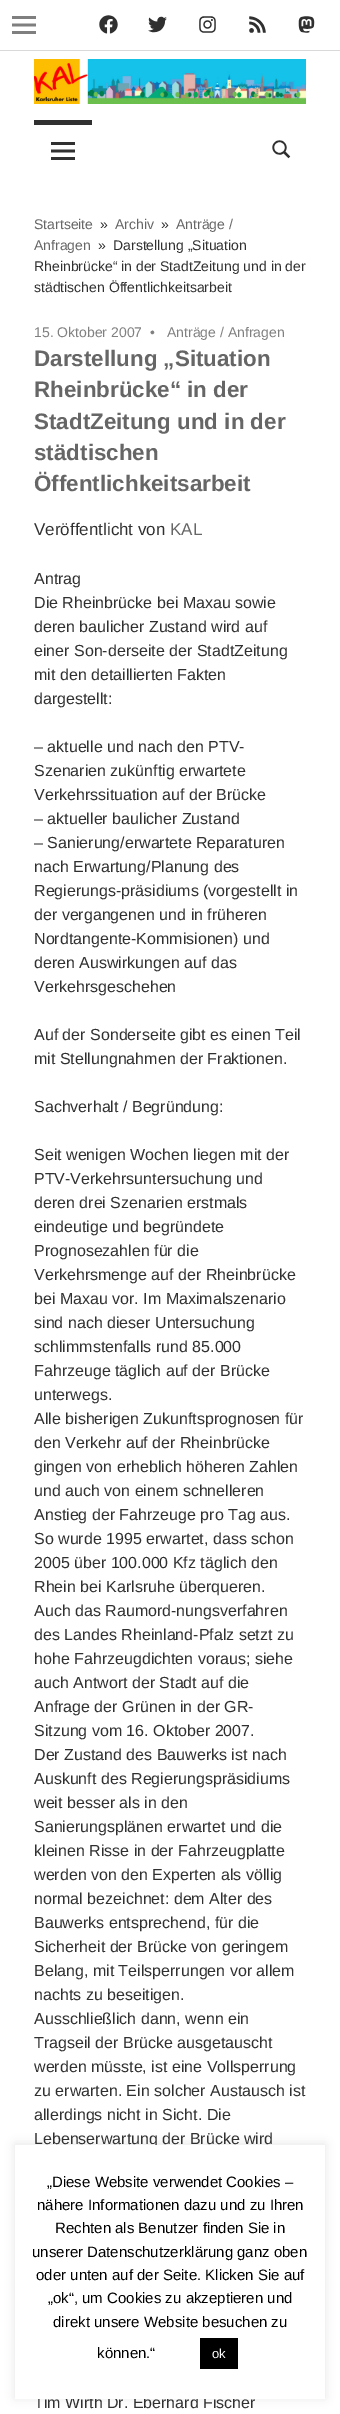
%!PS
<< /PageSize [340 2414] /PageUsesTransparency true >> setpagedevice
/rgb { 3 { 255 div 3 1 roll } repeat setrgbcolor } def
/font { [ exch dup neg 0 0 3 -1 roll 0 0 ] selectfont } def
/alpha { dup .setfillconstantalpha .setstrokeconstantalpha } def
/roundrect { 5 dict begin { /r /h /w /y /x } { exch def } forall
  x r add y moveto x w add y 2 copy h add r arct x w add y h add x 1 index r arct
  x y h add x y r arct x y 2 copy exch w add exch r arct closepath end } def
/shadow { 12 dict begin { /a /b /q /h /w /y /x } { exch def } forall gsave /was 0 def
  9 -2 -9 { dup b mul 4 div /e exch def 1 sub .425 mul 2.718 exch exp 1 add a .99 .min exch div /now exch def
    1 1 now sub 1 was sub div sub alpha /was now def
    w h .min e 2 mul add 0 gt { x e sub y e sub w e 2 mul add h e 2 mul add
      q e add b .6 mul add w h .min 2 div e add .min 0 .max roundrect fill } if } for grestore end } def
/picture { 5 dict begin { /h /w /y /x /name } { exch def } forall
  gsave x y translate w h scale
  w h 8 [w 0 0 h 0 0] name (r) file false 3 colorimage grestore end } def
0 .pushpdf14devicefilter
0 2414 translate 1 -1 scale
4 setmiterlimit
255 255 255 rgb
0 0 340 2414 rectfill
217 217 217 rgb
0 50 340 1 rectfill
(img/1.rgb) 12 16 24 18 picture
(img/2.rgb) 99 15 19 19 picture
(img/3.rgb) 148 16 19 17 picture
(img/4.rgb) 199 16 17 17 picture
(img/5.rgb) 249 16 17 17 picture
(img/6.rgb) 298 16 17 17 picture
(img/7.rgb) 34 59 272 45 picture
48 48 48 rgb
34 120 58 5 rectfill
(img/8.rgb) 51 142 24 18 picture
(img/9.rgb) 272 140 19 19 picture
172 171 171 rgb
15 2144 310 254 0 5 0.3 shadow
/LiberationSans-Regular 14 font
102 102 102 rgb
34 229 moveto (Startseite) show
48 48 48 rgb
100 229 moveto (») show
102 102 102 rgb
115 229 moveto (Archiv) show
48 48 48 rgb
161 229 moveto (») show
102 102 102 rgb
176 229 moveto (Anträge /) show
34 250 moveto (Anfragen) show
48 48 48 rgb
[
  [(») 98 250]
  [(Darstellung „Situation) 113 250]
  [(Rheinbrücke“ in der StadtZeitung und in der) 34 271]
  [(städtischen Öffentlichkeitsarbeit) 34 292]
] { aload pop moveto show } forall
128 128 128 rgb
[
  [(15. Oktober 2007) 34 337]
  [(•) 150 337]
  [(Anträge / Anfragen) 167 337]
] { aload pop moveto show } forall
/LiberationSans-Bold 22.4 font
102 102 102 rgb
[
  [(Darstellung „Situation) 34 366]
  [(Rheinbrücke“ in der) 34 397]
  [(StadtZeitung und in der) 34 429]
  [(städtischen) 34 460]
  [(Öffentlichkeitsarbeit) 34 491]
] { aload pop moveto show } forall
/LiberationSans-Regular 17 font
48 48 48 rgb
34 535 moveto (Veröffentlicht von) show
102 102 102 rgb
170 535 moveto (KAL) show
/LiberationSans-Regular 16 font
48 48 48 rgb
[
  [(Antrag) 34 584]
  [(Die Rheinbrücke bei Maxau sowie) 34 608]
  [(deren baulicher Zustand wird auf) 34 632]
  [(einer Son-derseite der StadtZeitung) 34 656]
  [(mit den detaillierten Fakten) 34 680]
  [(dargestellt:) 34 704]
  [(– aktuelle und nach den PTV-) 34 752]
  [(Szenarien zukünftig erwartete) 34 776]
  [(Verkehrssituation auf der Brücke) 34 800]
  [(– aktueller baulicher Zustand) 34 824]
  [(– Sanierung/erwartete Reparaturen) 34 848]
  [(nach Erwartung/Planung des) 34 872]
  [(Regierungs-präsidiums \(vorgestellt in) 34 896]
  [(der vergangenen und in früheren) 34 920]
  [(Nordtangente-Kommisionen\) und) 34 944]
  [(deren Auswirkungen auf das) 34 968]
  [(Verkehrsgeschehen) 34 992]
  [(Auf der Sonderseite gibt es einen Teil) 34 1040]
  [(mit Stellungnahmen der Fraktionen.) 34 1064]
  [(Sachverhalt / Begründung:) 34 1112]
  [(Seit wenigen Wochen liegen mit der) 34 1160]
  [(PTV-Verkehrsuntersuchung und) 34 1184]
  [(deren drei Szenarien erstmals) 34 1208]
  [(eindeutige und begründete) 34 1232]
  [(Prognosezahlen für die) 34 1256]
  [(Verkehrsmenge auf der Rheinbrücke) 34 1280]
  [(bei Maxau vor. Im Maximalszenario) 34 1304]
  [(sind nach dieser Untersuchung) 34 1328]
  [(schlimmstenfalls rund 85.000) 34 1352]
  [(Fahrzeuge täglich auf der Brücke) 34 1376]
  [(unterwegs.) 34 1400]
  [(Alle bisherigen Zukunftsprognosen für) 34 1424]
  [(den Verkehr auf der Rheinbrücke) 34 1448]
  [(gingen von erheblich höheren Zahlen) 34 1472]
  [(und auch von einem schnelleren) 34 1496]
  [(Anstieg der Fahrzeuge pro Tag aus.) 34 1520]
  [(So wurde 1995 erwartet, dass schon) 34 1544]
  [(2005 über 100.000 Kfz täglich den) 34 1568]
  [(Rhein bei Karlsruhe überqueren.) 34 1592]
  [(Auch das Raumord-nungsverfahren) 34 1616]
  [(des Landes Rheinland-Pfalz setzt zu) 34 1640]
  [(hohe Fahrzeugdichten voraus; siehe) 34 1664]
  [(auch Antwort der Stadt auf die) 34 1688]
  [(Anfrage der Grünen in der GR-) 34 1712]
  [(Sitzung vom 16. Oktober 2007.) 34 1736]
  [(Der Zustand des Bauwerks ist nach) 34 1760]
  [(Auskunft des Regierungspräsidiums) 34 1784]
  [(weit besser als in den) 34 1808]
  [(Sanierungsplänen erwartet und die) 34 1832]
  [(kleinen Risse in der Fahrzeugplatte) 34 1856]
  [(werden von den Experten als völlig) 34 1880]
  [(normal bezeichnet: dem Alter des) 34 1904]
  [(Bauwerks entsprechend, für die) 34 1928]
  [(Sicherheit der Brücke von geringem) 34 1952]
  [(Belang, mit Teilsperrungen vor allem) 34 1976]
  [(nachts zu beseitigen.) 34 2000]
  [(Ausschließlich dann, wenn ein) 34 2024]
  [(Tragseil der Brücke ausgetauscht) 34 2048]
  [(werden müsste, ist eine Vollsperrung) 34 2072]
  [(zu erwarten. Ein solcher Austausch ist) 34 2096]
  [(allerdings nicht in Sicht. Die) 34 2120]
  [(Lebenserwartung der Brücke wird) 34 2144]
  [(Tim Wirth Dr. Eberhard Fischer) 34 2408]
] { aload pop moveto show } forall
255 255 255 rgb
15 2145 310 254 rectfill
/LiberationSans-Regular 15 font
0 0 0 rgb
[
  [(„Diese Website verwendet Cookies –) 47 2187]
  [(nähere Informationen dazu und zu Ihren) 37 2210]
  [(Rechten als Benutzer finden Sie in) 55 2233]
  [(unserer Datenschutzerklärung ganz oben) 32 2257]
  [(oder unten auf der Seite. Klicken Sie auf) 36 2280]
  [(„ok“, um Cookies zu akzeptieren und) 48 2303]
  [(direkt unsere Website besuchen zu) 53 2327]
  [(können.“) 97 2358]
] { aload pop moveto show } forall
200 2338 38 31 rectfill
/LiberationSans-Regular 13 font
255 255 255 rgb
212 2358 moveto (ok) show
.poppdf14devicefilter showpage
